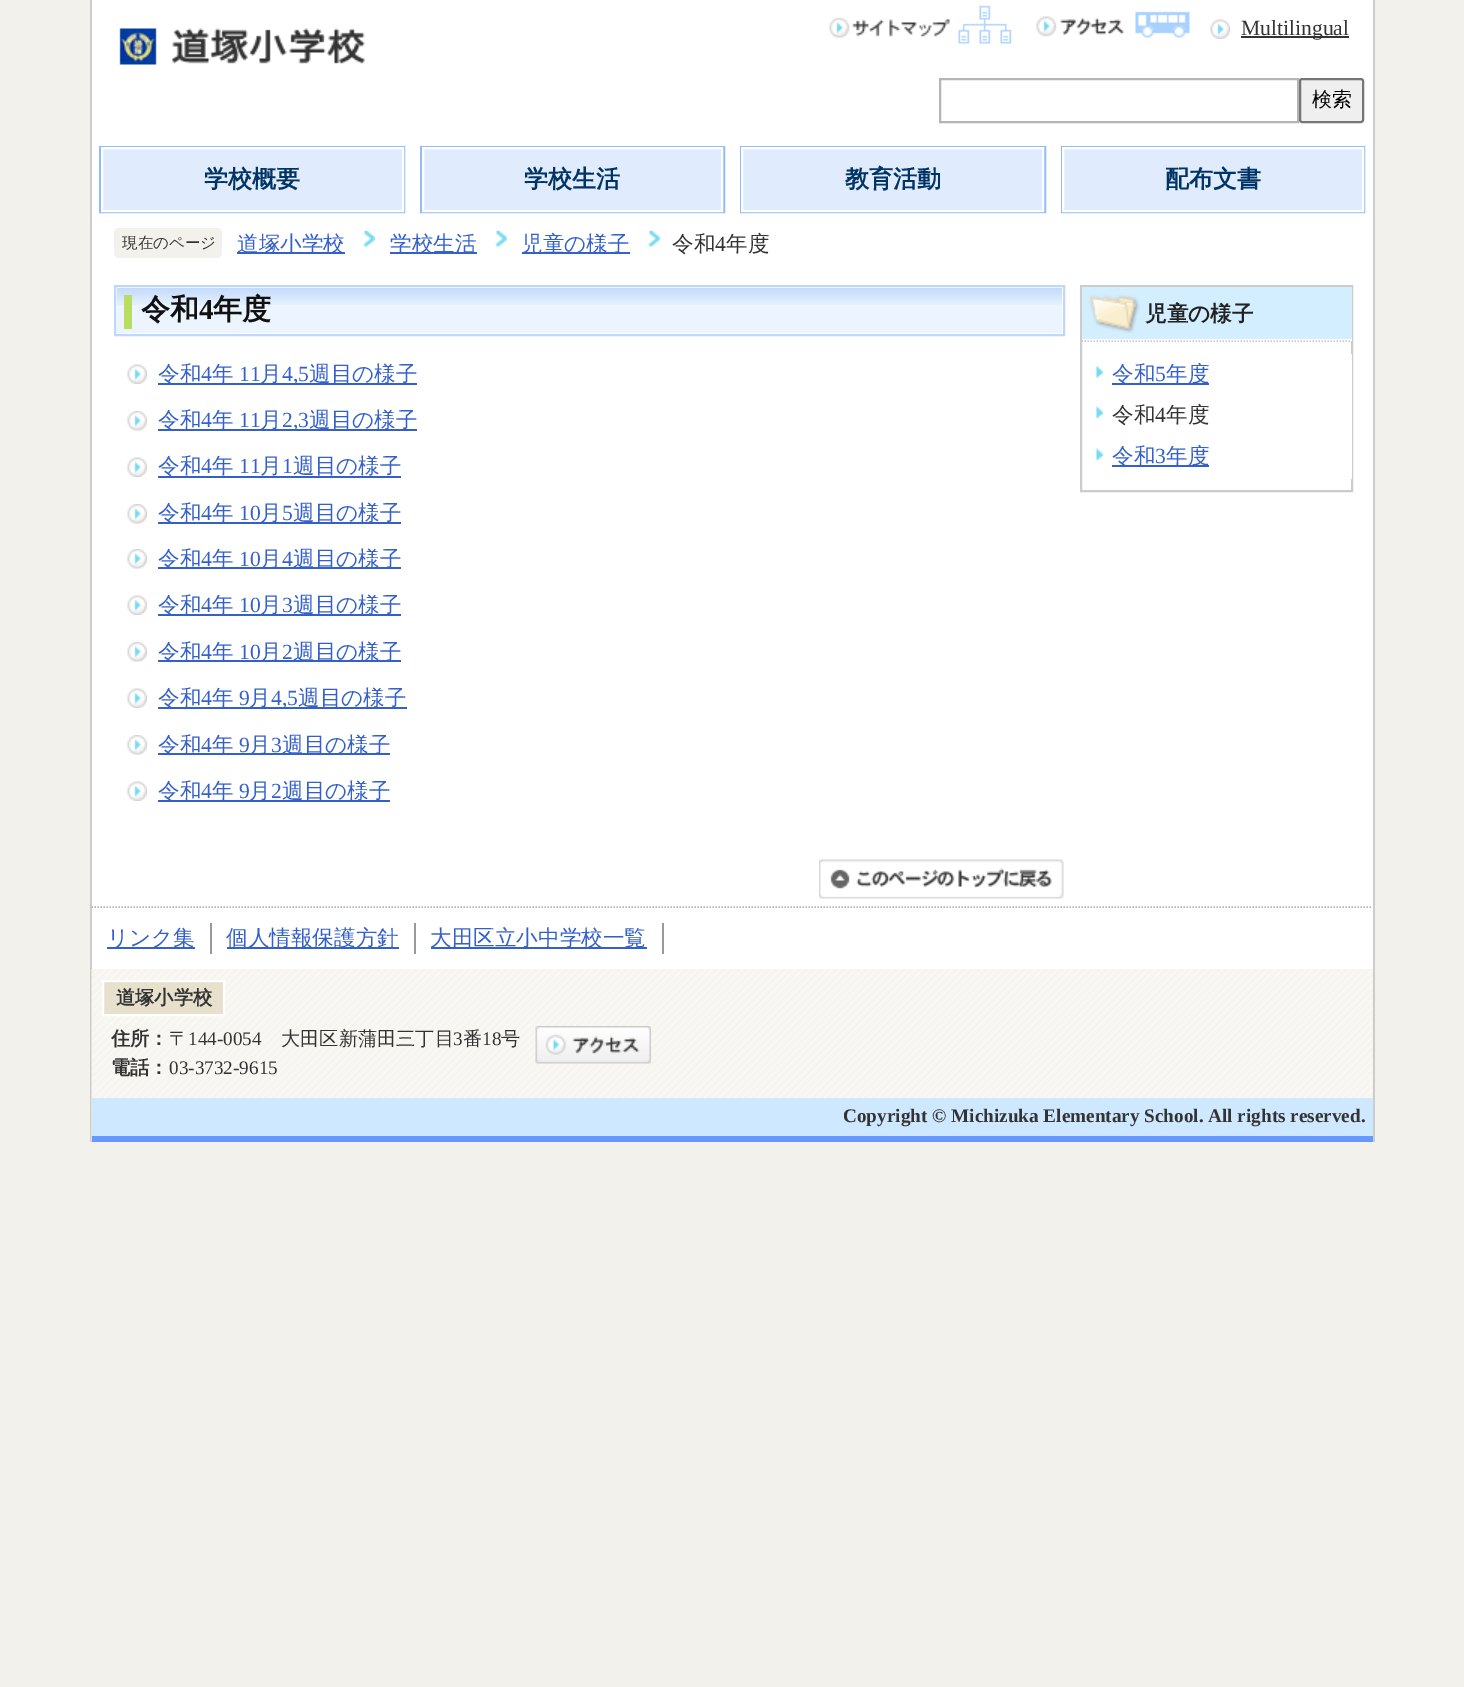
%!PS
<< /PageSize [1464 1687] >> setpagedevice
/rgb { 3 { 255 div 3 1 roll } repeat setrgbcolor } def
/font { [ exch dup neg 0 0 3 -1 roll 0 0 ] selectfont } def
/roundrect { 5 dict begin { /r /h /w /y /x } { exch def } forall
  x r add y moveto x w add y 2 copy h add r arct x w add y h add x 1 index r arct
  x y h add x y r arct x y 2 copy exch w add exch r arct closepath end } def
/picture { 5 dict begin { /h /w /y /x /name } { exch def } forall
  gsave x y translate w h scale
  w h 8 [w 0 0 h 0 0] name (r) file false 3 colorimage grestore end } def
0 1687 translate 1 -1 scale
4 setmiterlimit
243 241 235 rgb
0 0 1464 1687 rectfill
[
  [92 0 1281 969 255 255 255]
  [1373 0 2 1142 204 204 204]
  [90 0 2 1142 204 204 204]
] { aload pop rgb rectfill } forall
(img/1.rgb) 119 28 246 37 picture
(img/2.rgb) 829 5 183 39 picture
(img/3.rgb) 1036 11 154 27 picture
(img/4.rgb) 1210 19 20 20 picture
51 51 51 rgb
1241 36 108 2 rectfill
181 181 182 rgb
2 setlinewidth
940 79 358 43 rectstroke
239 239 239 rgb
1300 79 63 43 2 roundrect gsave fill grestore
118 118 118 rgb
stroke
144 189 249 rgb
100 147 304 65 rectstroke
224 236 253 rgb
102 148 moveto 403 148 lineto 403 211 lineto 102 211 lineto closepath gsave fill grestore
255 255 255 rgb
stroke
144 189 249 rgb
421 147 303 65 rectstroke
224 236 253 rgb
423 148 moveto 722 148 lineto 722 211 lineto 423 211 lineto closepath gsave fill grestore
255 255 255 rgb
stroke
144 189 249 rgb
741 147 304 65 rectstroke
224 236 253 rgb
742 148 moveto 1043 148 lineto 1043 211 lineto 742 211 lineto closepath gsave fill grestore
255 255 255 rgb
stroke
144 189 249 rgb
1062 147 302 65 rectstroke
224 236 253 rgb
1063 148 moveto 1363 148 lineto 1363 211 lineto 1063 211 lineto closepath gsave fill grestore
255 255 255 rgb
stroke
243 241 235 rgb
114 228 108 30 5 roundrect fill
(img/5.rgb) 363 231 12 17 picture
51 96 203 rgb
237 252 108 2 rectfill
(img/5.rgb) 495 231 12 17 picture
390 252 87 2 rectfill
(img/6.rgb) 648 231 12 17 picture
522 252 108 2 rectfill
190 216 251 rgb
115 286 949 49 rectstroke
235 244 255 rgb
117 305 945 28 rectfill
(img/7.rgb) 117 288 945 17 picture
185 221 97 rgb
124 295 8 34 rectfill
(img/4.rgb) 127 364 20 20 picture
51 96 203 rgb
158 383 259 2 rectfill
(img/8.rgb) 127 411 20 20 picture
158 429 259 2 rectfill
(img/4.rgb) 127 457 20 20 picture
158 476 243 2 rectfill
(img/8.rgb) 127 504 20 20 picture
158 522 243 2 rectfill
(img/8.rgb) 127 549 20 20 picture
158 567 243 2 rectfill
(img/4.rgb) 127 595 20 20 picture
158 614 243 2 rectfill
(img/8.rgb) 127 642 20 20 picture
158 660 243 2 rectfill
(img/4.rgb) 127 688 20 20 picture
158 707 249 2 rectfill
(img/8.rgb) 127 735 20 20 picture
158 753 232 2 rectfill
(img/4.rgb) 127 781 20 20 picture
158 800 232 2 rectfill
(img/9.rgb) 819 859 245 40 picture
204 204 204 rgb
1081 286 271 205 rectstroke
211 238 255 rgb
1082 287 270 52 rectfill
255 255 255 rgb
1351 339 1 2 rectfill
(img/10.rgb) 1089 295 51 38 picture
204 204 204 rgb
1.5 setlinewidth
[1.5 1.5] 0 setdash
1081.5 341 moveto 1351.5 341 lineto stroke
255 255 255 rgb
1351 354 1 125 rectfill
(img/11.rgb) 1096 366 8 12 picture
51 96 203 rgb
1112 383 97 2 rectfill
(img/12.rgb) 1096 406 8 13 picture
(img/12.rgb) 1096 448 8 13 picture
1112 465 97 2 rectfill
180 180 180 rgb
91.5 907 moveto 1372.5 907 lineto stroke
[
  [210 923 2 31 153 153 153]
  [107 947 88 2 51 96 203]
  [414 923 2 31 153 153 153]
  [227 947 172 2 51 96 203]
  [662 923 2 31 153 153 153]
  [431 947 216 2 51 96 203]
] { aload pop rgb rectfill } forall
(img/13.rgb) 91 969 1282 173 picture
230 224 204 rgb
103 981 moveto 224 981 lineto 224 1015 lineto 103 1015 lineto closepath gsave fill grestore
254 254 254 rgb
2 setlinewidth
[] 0 setdash
stroke
(img/14.rgb) 535 1026 116 38 picture
206 232 255 rgb
92 1098 1281 38 rectfill
102 153 255 rgb
92 1136 1281 6 rectfill
/LiberationSerif-Regular 21.6 font
51 51 51 rgb
1241 35 moveto (Multilingual) show
/WenQuanYiZenHei-Medium 20 font
0 0 0 rgb
1312 106 moveto (検索) show
/WenQuanYiZenHei-Bold 24 font
0 51 102 rgb
[
  [(学校概要) 204 187]
  [(学校生活) 524 187]
  [(教育活動) 845 187]
  [(配布文書) 1165 187]
] { aload pop moveto show } forall
/WenQuanYiZenHei-Medium 15.5 font
51 51 51 rgb
122 248 moveto (現在のページ) show
/WenQuanYiZenHei-Medium 21.6 font
51 96 203 rgb
[
  [(道塚小学校) 237 251]
  [(学校生活) 390 251]
  [(児童の様子) 521 251]
] { aload pop moveto show } forall
51 51 51 rgb
672 251 moveto (令和) show
/LiberationSerif-Regular 21.6 font
715 251 moveto (4) show
/WenQuanYiZenHei-Medium 21.6 font
726 251 moveto (年度) show
/WenQuanYiZenHei-Bold 29 font
17 17 17 rgb
141 319 moveto (令和) show
/LiberationSerif-Bold 29 font
199 319 moveto (4) show
/WenQuanYiZenHei-Bold 29 font
213 319 moveto (年度) show
/WenQuanYiZenHei-Medium 21.6 font
51 96 203 rgb
158 381 moveto (令和) show
/LiberationSerif-Regular 21.6 font
201 381 moveto (4) show
/WenQuanYiZenHei-Medium 21.6 font
212 381 moveto (年) show
/LiberationSerif-Regular 21.6 font
239 381 moveto (11) show
/WenQuanYiZenHei-Medium 21.6 font
260 381 moveto (月) show
/LiberationSerif-Regular 21.6 font
282 381 moveto (4,5) show
/WenQuanYiZenHei-Medium 21.6 font
309 381 moveto (週目の様子) show
158 427 moveto (令和) show
/LiberationSerif-Regular 21.6 font
201 427 moveto (4) show
/WenQuanYiZenHei-Medium 21.6 font
212 427 moveto (年) show
/LiberationSerif-Regular 21.6 font
239 427 moveto (11) show
/WenQuanYiZenHei-Medium 21.6 font
260 427 moveto (月) show
/LiberationSerif-Regular 21.6 font
282 427 moveto (2,3) show
/WenQuanYiZenHei-Medium 21.6 font
309 427 moveto (週目の様子) show
158 473 moveto (令和) show
/LiberationSerif-Regular 21.6 font
201 473 moveto (4) show
/WenQuanYiZenHei-Medium 21.6 font
212 473 moveto (年) show
/LiberationSerif-Regular 21.6 font
239 473 moveto (11) show
/WenQuanYiZenHei-Medium 21.6 font
260 473 moveto (月) show
/LiberationSerif-Regular 21.6 font
282 473 moveto (1) show
/WenQuanYiZenHei-Medium 21.6 font
293 473 moveto (週目の様子) show
158 520 moveto (令和) show
/LiberationSerif-Regular 21.6 font
201 520 moveto (4) show
/WenQuanYiZenHei-Medium 21.6 font
212 520 moveto (年) show
/LiberationSerif-Regular 21.6 font
239 520 moveto (10) show
/WenQuanYiZenHei-Medium 21.6 font
260 520 moveto (月) show
/LiberationSerif-Regular 21.6 font
282 520 moveto (5) show
/WenQuanYiZenHei-Medium 21.6 font
293 520 moveto (週目の様子) show
158 566 moveto (令和) show
/LiberationSerif-Regular 21.6 font
201 566 moveto (4) show
/WenQuanYiZenHei-Medium 21.6 font
212 566 moveto (年) show
/LiberationSerif-Regular 21.6 font
239 566 moveto (10) show
/WenQuanYiZenHei-Medium 21.6 font
260 566 moveto (月) show
/LiberationSerif-Regular 21.6 font
282 566 moveto (4) show
/WenQuanYiZenHei-Medium 21.6 font
293 566 moveto (週目の様子) show
158 612 moveto (令和) show
/LiberationSerif-Regular 21.6 font
201 612 moveto (4) show
/WenQuanYiZenHei-Medium 21.6 font
212 612 moveto (年) show
/LiberationSerif-Regular 21.6 font
239 612 moveto (10) show
/WenQuanYiZenHei-Medium 21.6 font
260 612 moveto (月) show
/LiberationSerif-Regular 21.6 font
282 612 moveto (3) show
/WenQuanYiZenHei-Medium 21.6 font
293 612 moveto (週目の様子) show
158 659 moveto (令和) show
/LiberationSerif-Regular 21.6 font
201 659 moveto (4) show
/WenQuanYiZenHei-Medium 21.6 font
212 659 moveto (年) show
/LiberationSerif-Regular 21.6 font
239 659 moveto (10) show
/WenQuanYiZenHei-Medium 21.6 font
260 659 moveto (月) show
/LiberationSerif-Regular 21.6 font
282 659 moveto (2) show
/WenQuanYiZenHei-Medium 21.6 font
293 659 moveto (週目の様子) show
158 705 moveto (令和) show
/LiberationSerif-Regular 21.6 font
201 705 moveto (4) show
/WenQuanYiZenHei-Medium 21.6 font
212 705 moveto (年) show
/LiberationSerif-Regular 21.6 font
239 705 moveto (9) show
/WenQuanYiZenHei-Medium 21.6 font
249 705 moveto (月) show
/LiberationSerif-Regular 21.6 font
271 705 moveto (4,5) show
/WenQuanYiZenHei-Medium 21.6 font
298 705 moveto (週目の様子) show
158 752 moveto (令和) show
/LiberationSerif-Regular 21.6 font
201 752 moveto (4) show
/WenQuanYiZenHei-Medium 21.6 font
212 752 moveto (年) show
/LiberationSerif-Regular 21.6 font
239 752 moveto (9) show
/WenQuanYiZenHei-Medium 21.6 font
249 752 moveto (月) show
/LiberationSerif-Regular 21.6 font
271 752 moveto (3) show
/WenQuanYiZenHei-Medium 21.6 font
282 752 moveto (週目の様子) show
158 798 moveto (令和) show
/LiberationSerif-Regular 21.6 font
201 798 moveto (4) show
/WenQuanYiZenHei-Medium 21.6 font
212 798 moveto (年) show
/LiberationSerif-Regular 21.6 font
239 798 moveto (9) show
/WenQuanYiZenHei-Medium 21.6 font
249 798 moveto (月) show
/LiberationSerif-Regular 21.6 font
271 798 moveto (2) show
/WenQuanYiZenHei-Medium 21.6 font
282 798 moveto (週目の様子) show
/WenQuanYiZenHei-Bold 21.6 font
34 34 34 rgb
1145 321 moveto (児童の様子) show
/WenQuanYiZenHei-Medium 21.6 font
51 96 203 rgb
1112 381 moveto (令和) show
/LiberationSerif-Regular 21.6 font
1155 381 moveto (5) show
/WenQuanYiZenHei-Medium 21.6 font
1166 381 moveto (年度) show
51 51 51 rgb
1112 422 moveto (令和) show
/LiberationSerif-Regular 21.6 font
1155 422 moveto (4) show
/WenQuanYiZenHei-Medium 21.6 font
1166 422 moveto (年度) show
51 96 203 rgb
1112 463 moveto (令和) show
/LiberationSerif-Regular 21.6 font
1155 463 moveto (3) show
/WenQuanYiZenHei-Medium 21.6 font
[
  [(年度) 1166 463]
  [(リンク集) 107 945]
  [(個人情報保護方針) 226 945]
  [(大田区立小中学校一覧) 430 945]
] { aload pop moveto show } forall
/WenQuanYiZenHei-Bold 19.2 font
51 51 51 rgb
116 1004 moveto (道塚小学校) show
111 1045 moveto (住所：) show
/WenQuanYiZenHei-Medium 19.2 font
169 1045 moveto (〒) show
/LiberationSerif-Regular 19.2 font
188 1045 moveto (144-0054) show
/WenQuanYiZenHei-Medium 19.2 font
281 1045 moveto (大田区新蒲田三丁目) show
/LiberationSerif-Regular 19.2 font
453 1045 moveto (3) show
/WenQuanYiZenHei-Medium 19.2 font
463 1045 moveto (番) show
/LiberationSerif-Regular 19.2 font
482 1045 moveto (18) show
/WenQuanYiZenHei-Medium 19.2 font
501 1045 moveto (号) show
/WenQuanYiZenHei-Bold 19.2 font
111 1074 moveto (電話：) show
/LiberationSerif-Regular 19.2 font
169 1074 moveto (03-3732-9615) show
/LiberationSerif-Bold 19.2 font
843 1122 moveto (Copyright © Michizuka Elementary School. All rights reserved.) show
showpage
